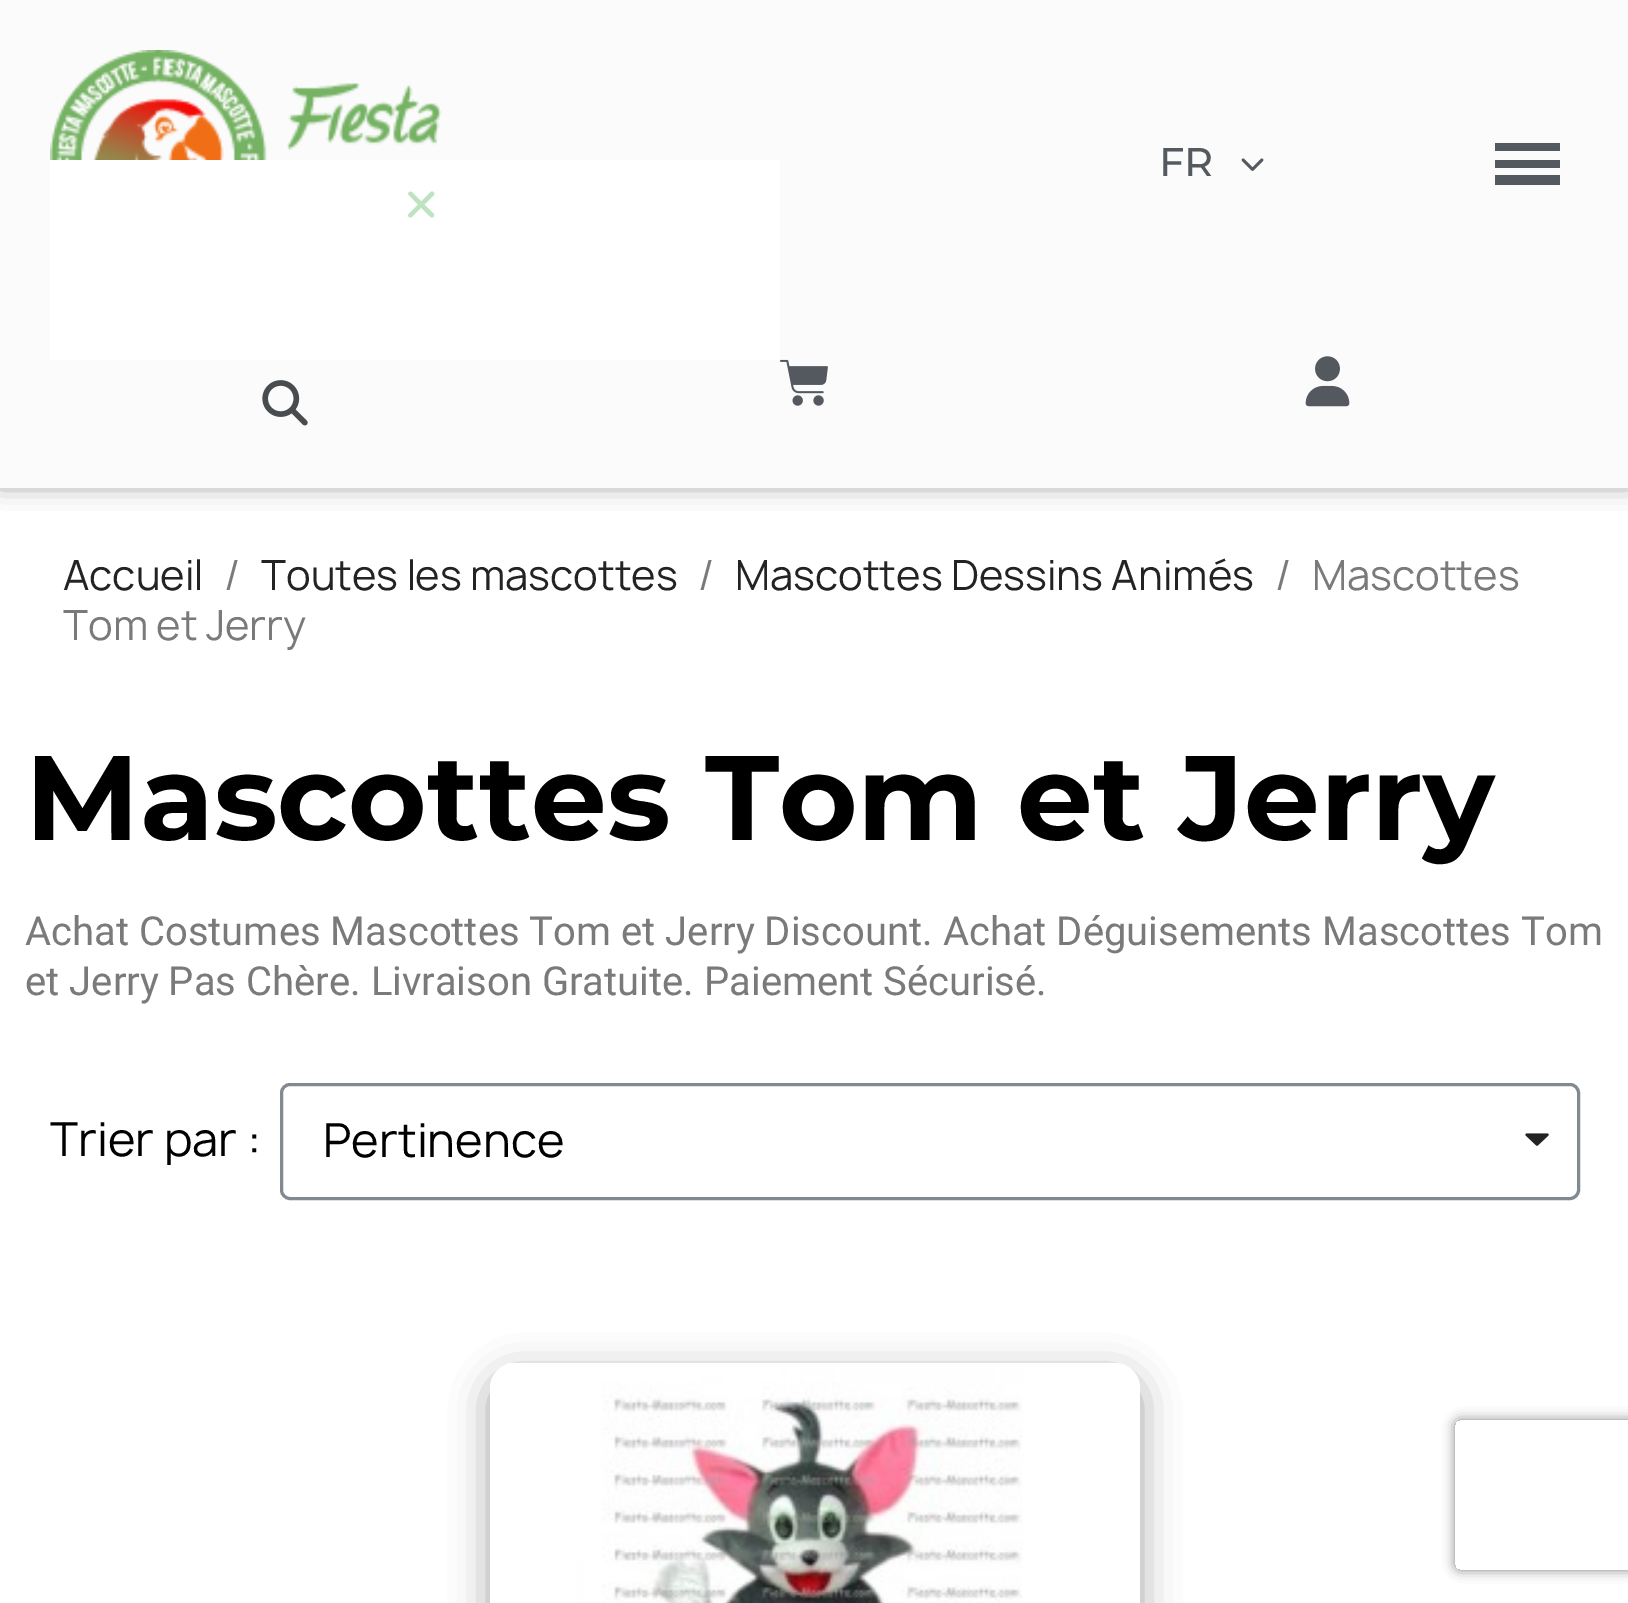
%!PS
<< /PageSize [1628 1603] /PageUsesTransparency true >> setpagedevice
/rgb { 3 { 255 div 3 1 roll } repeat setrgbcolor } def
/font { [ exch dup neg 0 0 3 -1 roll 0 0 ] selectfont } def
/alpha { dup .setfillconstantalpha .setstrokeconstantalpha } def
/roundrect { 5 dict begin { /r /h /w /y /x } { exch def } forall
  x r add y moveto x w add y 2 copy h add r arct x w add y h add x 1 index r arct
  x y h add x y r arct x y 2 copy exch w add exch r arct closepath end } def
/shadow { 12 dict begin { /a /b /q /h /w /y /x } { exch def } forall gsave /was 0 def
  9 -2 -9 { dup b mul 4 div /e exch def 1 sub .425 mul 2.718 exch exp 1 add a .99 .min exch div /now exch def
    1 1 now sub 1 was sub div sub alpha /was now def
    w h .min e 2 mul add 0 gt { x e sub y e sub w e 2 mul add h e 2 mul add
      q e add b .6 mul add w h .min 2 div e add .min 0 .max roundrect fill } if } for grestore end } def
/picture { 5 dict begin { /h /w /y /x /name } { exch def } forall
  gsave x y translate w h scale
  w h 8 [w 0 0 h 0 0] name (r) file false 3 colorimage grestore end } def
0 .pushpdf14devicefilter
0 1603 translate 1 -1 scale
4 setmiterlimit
255 255 255 rgb
0 0 1628 1603 rectfill
0 0 0 rgb
0 -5 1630 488 0 12.5 0.5 shadow
251 251 251 rgb
0 0 1628 488 rectfill
(img/1.rgb) 50 50 392 110 picture
(img/2.rgb) 1241 158 23 13 picture
[
  [1495 160 65 8 84 89 95]
  [1495 143 65 8 84 89 95]
  [1495 175 65 10 84 89 95]
  [50 160 730 200 255 255 255]
] { aload pop rgb rectfill } forall
(img/3.rgb) 408 191 27 27 picture
(img/4.rgb) 262 380 46 46 picture
(img/5.rgb) 780 359 48 47 picture
(img/6.rgb) 1305 356 45 51 picture
129 138 145 rgb
3 setlinewidth
281.5 1084.5 1297 114 8.5 roundrect stroke
(img/7.rgb) 1525 1133 24 13 picture
0 0 0 rgb
490 1375 650 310 25 19 0.35 shadow
255 255 255 rgb
490 1363 650 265 25 roundrect fill
(img/8.rgb) 507 1363 516 240 picture
gsave
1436 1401 moveto 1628 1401 lineto 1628 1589 lineto 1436 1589 lineto closepath 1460 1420 moveto 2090 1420 lineto 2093 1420 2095 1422 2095 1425 curveto 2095 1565 lineto 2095 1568 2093 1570 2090 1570 curveto 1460 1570 lineto 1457 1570 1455 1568 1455 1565 curveto 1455 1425 lineto 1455 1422 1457 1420 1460 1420 curveto closepath eoclip newpath
128 128 128 rgb
1455 1420 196 150 5 6 1 shadow
grestore
/Montserrat-Medium 40 font
84 89 95 rgb
1159 176 moveto (FR) show
/Manrope-Regular 40 font
35 35 35 rgb
63 590 moveto (Accueil) show
122 122 122 rgb
224 590 moveto (/) show
35 35 35 rgb
261 590 moveto (Toutes les mascottes) show
122 122 122 rgb
698 590 moveto (/) show
35 35 35 rgb
735 590 moveto (Mascottes Dessins Animés) show
122 122 122 rgb
[
  [(/) 1275 590]
  [(Mascottes) 1312 590]
  [(Tom et Jerry) 63 640]
] { aload pop moveto show } forall
/Montserrat-Bold 120 font
0 0 0 rgb
25 840 moveto (Mascottes Tom et Jerry) show
/Roboto-Regular 40 font
122 122 122 rgb
25 945 moveto (Achat Costumes Mascottes Tom et Jerry Discount. Achat Déguisements Mascottes Tom) show
25 995 moveto (et Jerry Pas Chère. Livraison Gratuite. Paiement Sécurisé.) show
gsave
50 1115 210 50 rectclip
/Manrope-Regular 45 font
0 0 0 rgb
50 1156 moveto (Trier par :) show
grestore
/Manrope-Regular 45 font
0 0 0 rgb
323 1157 moveto (Pertinence) show
.poppdf14devicefilter showpage
